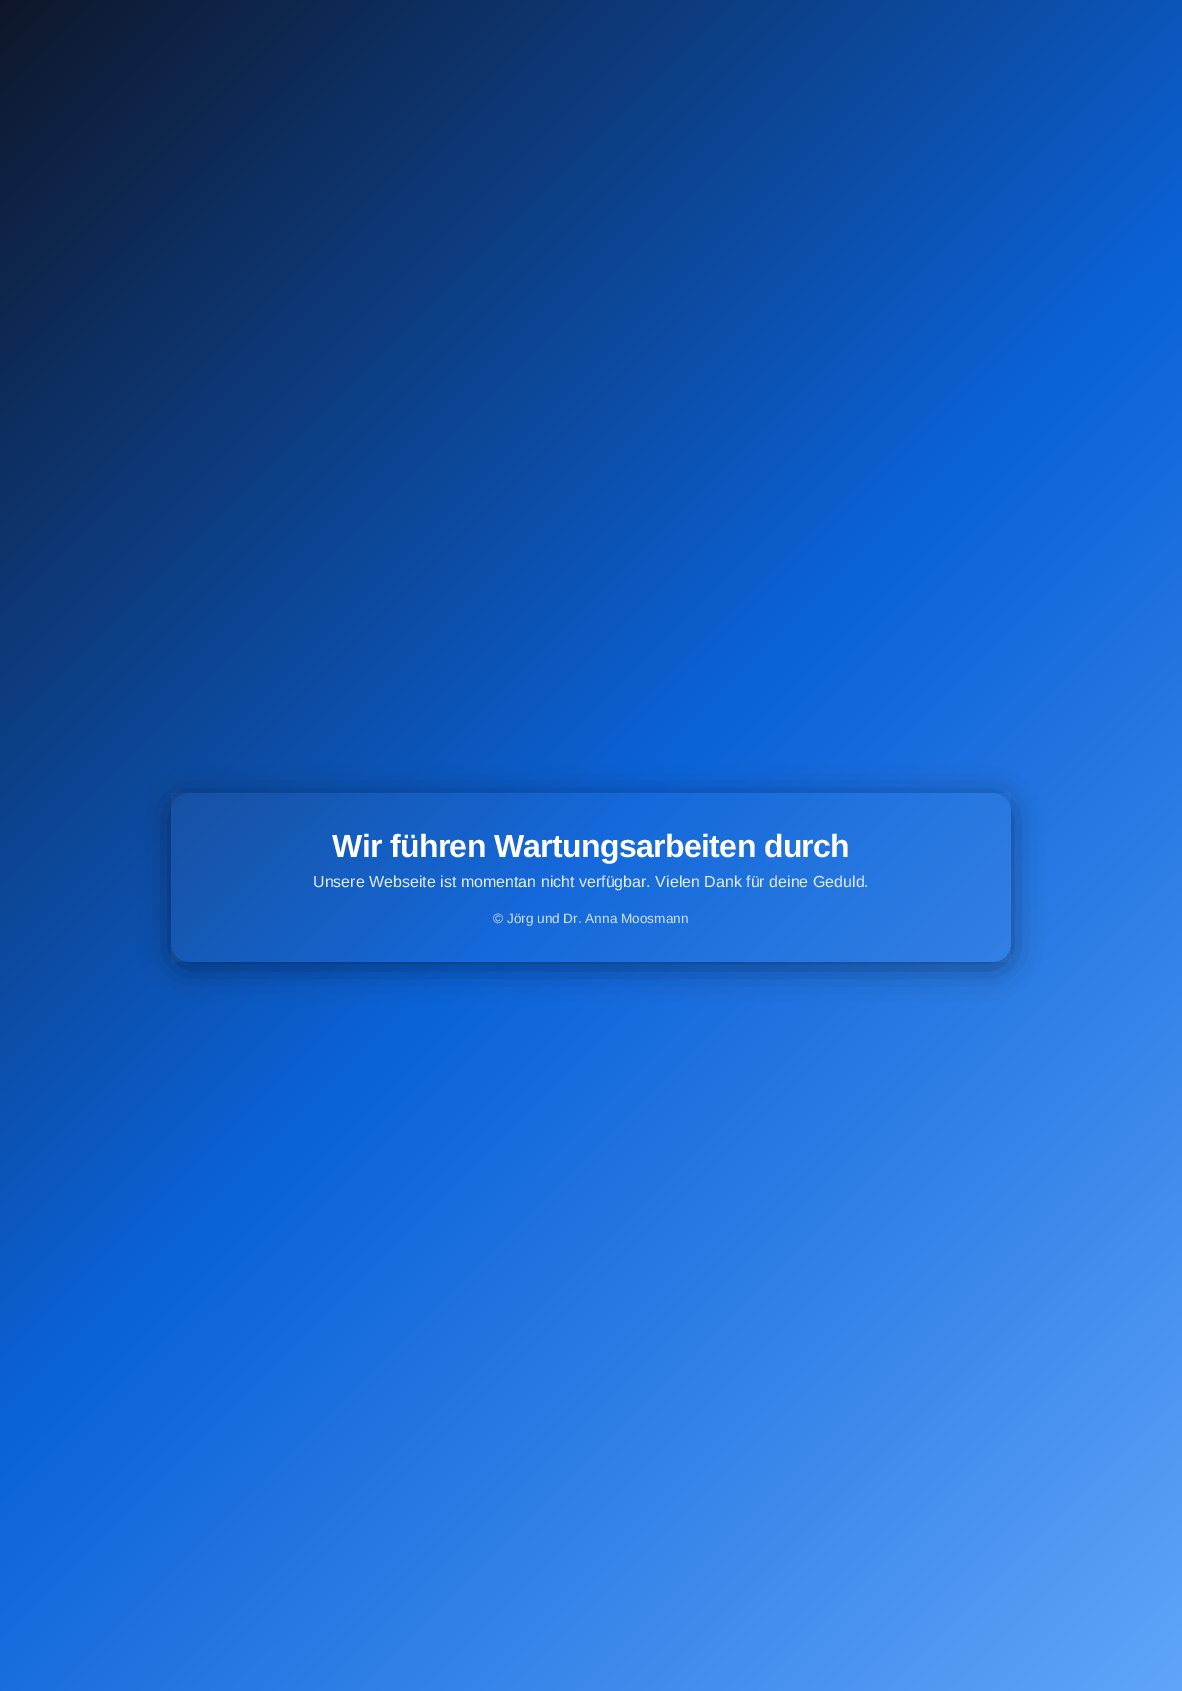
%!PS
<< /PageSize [1182 1691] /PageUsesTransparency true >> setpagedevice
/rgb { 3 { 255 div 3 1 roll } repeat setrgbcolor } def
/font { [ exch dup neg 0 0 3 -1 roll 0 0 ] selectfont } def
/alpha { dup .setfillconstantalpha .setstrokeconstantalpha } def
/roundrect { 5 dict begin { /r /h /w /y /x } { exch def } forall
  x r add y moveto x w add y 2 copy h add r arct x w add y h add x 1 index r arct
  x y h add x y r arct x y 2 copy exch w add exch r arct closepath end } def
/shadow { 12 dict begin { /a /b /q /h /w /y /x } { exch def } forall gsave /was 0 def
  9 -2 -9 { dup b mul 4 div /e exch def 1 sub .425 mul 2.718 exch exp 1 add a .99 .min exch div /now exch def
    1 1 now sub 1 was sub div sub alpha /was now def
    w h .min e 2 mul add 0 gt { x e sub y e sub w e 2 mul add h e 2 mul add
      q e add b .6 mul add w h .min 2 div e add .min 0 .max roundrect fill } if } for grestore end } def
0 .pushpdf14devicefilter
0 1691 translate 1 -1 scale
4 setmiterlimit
255 255 255 rgb
0 0 1182 1691 rectfill
gsave 0 0 moveto 1182 0 lineto 1182 1691 lineto 0 1691 lineto closepath clip newpath
<< /ShadingType 2 /ColorSpace /DeviceRGB /Coords [-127 127 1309 1564] /Extend [true true] /Function << /FunctionType 3 /Domain [0 1] /Functions [<< /FunctionType 2 /Domain [0 1] /C0 [0.059 0.09 0.165] /C1 [0.043 0.388 0.847] /N 1 >> << /FunctionType 2 /Domain [0 1] /C0 [0.043 0.388 0.847] /C1 [0.376 0.647 0.98] /N 1 >>] /Bounds [0.5] /Encode [0 1 0 1] >> >> shfill grestore
gsave
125 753 moveto 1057 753 lineto 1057 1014 lineto 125 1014 lineto closepath 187 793 moveto 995 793 lineto 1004 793 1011 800 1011 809 curveto 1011 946 lineto 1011 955 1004 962 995 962 curveto 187 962 lineto 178 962 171 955 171 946 curveto 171 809 lineto 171 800 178 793 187 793 curveto closepath eoclip newpath
2 6 23 rgb
171 799 840 169 16 15 0.45 shadow
grestore
0.04 alpha
171 793 840 169 rectfill
/LiberationSans-Bold 32 font
1 alpha
332 857 moveto -0.65 0 (Wir führen Wartungsarbeiten durch) ashow
/LiberationSans-Regular 16 font
227 235 253 rgb
313 887 moveto (Unsere Webseite ist momentan nicht verfügbar. Vielen Dank für deine Geduld.) show
/LiberationSans-Regular 13.6 font
206 222 250 rgb
493 923 moveto (© Jörg und Dr. Anna Moosmann) show
.poppdf14devicefilter showpage
